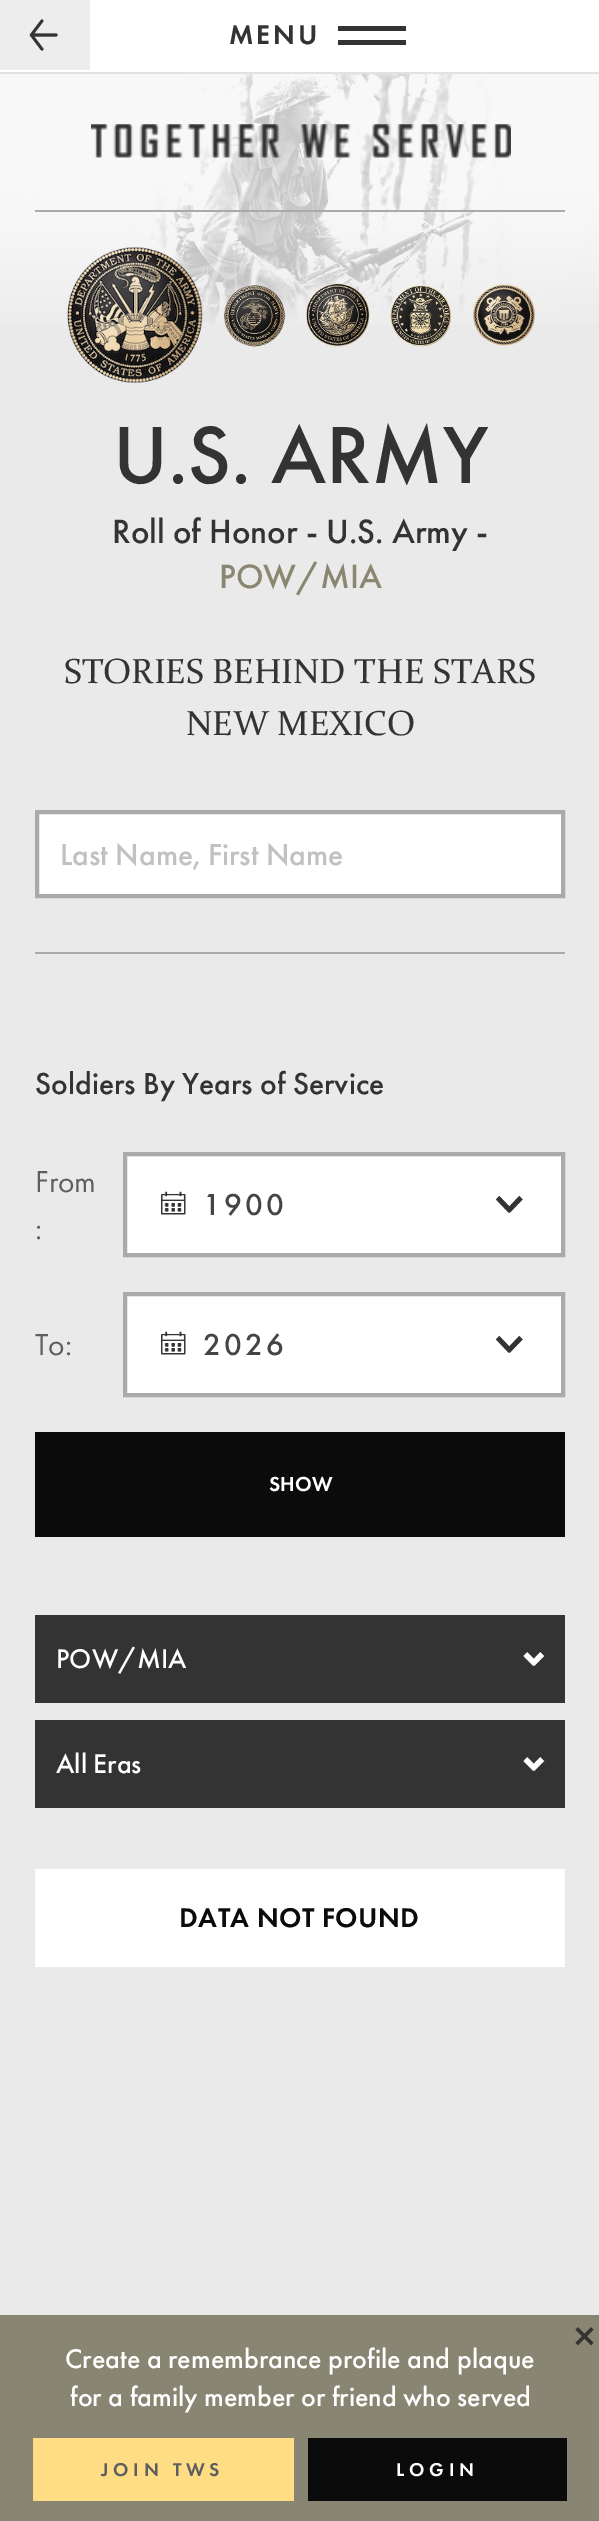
%!PS
<< /PageSize [599 2521] >> setpagedevice
/rgb { 3 { 255 div 3 1 roll } repeat setrgbcolor } def
/font { [ exch dup neg 0 0 3 -1 roll 0 0 ] selectfont } def
/picture { 5 dict begin { /h /w /y /x /name } { exch def } forall
  gsave x y translate w h scale
  w h 8 [w 0 0 h 0 0] name (r) file false 3 colorimage grestore end } def
0 2521 translate 1 -1 scale
4 setmiterlimit
234 234 234 rgb
0 0 599 2521 rectfill
(img/1.rgb) 0 74 599 251 picture
[
  [0 0 599 72 255 255 255]
  [0 72 599 2 226 226 226]
  [0 0 90 70 237 237 237]
] { aload pop rgb rectfill } forall
(img/2.rgb) 29 19 29 32 picture
51 51 51 rgb
338 26 68 5 rectfill
338 40 68 5 rectfill
(img/3.rgb) 91 124 420 34 picture
170 170 170 rgb
35 210 530 2 rectfill
35 952 530 2 rectfill
(img/4.rgb) 67 246 136 137 picture
(img/5.rgb) 224 285 62 62 picture
(img/6.rgb) 306 283 64 64 picture
(img/7.rgb) 390 285 62 62 picture
(img/8.rgb) 472 284 63 62 picture
255 255 255 rgb
37 812 moveto 563 812 lineto 563 896 lineto 37 896 lineto closepath gsave fill grestore
170 170 170 rgb
4 setlinewidth
stroke
255 255 255 rgb
127 1156 434 97 rectfill
(img/9.rgb) 161 1191 25 24 picture
170 170 170 rgb
125 1154 438 101 rectstroke
(img/10.rgb) 496 1196 27 17 picture
255 255 255 rgb
127 1296 434 97 rectfill
(img/9.rgb) 161 1331 25 24 picture
170 170 170 rgb
125 1294 438 101 rectstroke
(img/11.rgb) 496 1336 27 17 picture
11 11 12 rgb
35 1432 530 105 rectfill
51 51 51 rgb
35 1615 530 88 rectfill
(img/12.rgb) 523 1652 22 14 picture
35 1720 530 88 rectfill
(img/12.rgb) 523 1757 22 14 picture
255 255 255 rgb
35 1869 530 98 rectfill
136 134 114 rgb
0 2315 599 206 rectfill
(img/13.rgb) 575 2327 19 19 picture
254 221 132 rgb
33 2438 261 63 rectfill
11 11 12 rgb
308 2438 259 63 rectfill
/FuturaPT-SemiBold 28 font
51 51 51 rgb
229 44 moveto 3 0 (MENU) ashow
/FuturaPT-Medium 84 font
113 483 moveto (U.S. ARMY) show
/FuturaPT-Medium 35 font
112 543 moveto (Roll of Honor - U.S. Army -) show
137 135 112 rgb
219 588 moveto (POW/MIA) show
/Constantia-Regular 35 font
51 51 51 rgb
64 683 moveto (STORIES BEHIND THE STARS) show
186 735 moveto (NEW MEXICO) show
/FuturaPT-Medium 31.5 font
193 193 193 rgb
60 865 moveto (Last Name, First Name) show
51 51 51 rgb
35 1094 moveto (Soldiers By Years of Service) show
/FuturaPT-Regular 31.5 font
94 94 96 rgb
35 1192 moveto (From) show
35 1239 moveto (:) show
/FuturaPT-Medium 31.5 font
69 69 69 rgb
203 1215 moveto 3 0 (1900) ashow
/FuturaPT-Regular 31.5 font
94 94 96 rgb
35 1355 moveto (To:) show
/FuturaPT-Medium 31.5 font
69 69 69 rgb
203 1355 moveto 3 0 (2026) ashow
/FuturaPT-SemiBold 21 font
255 255 255 rgb
269 1491 moveto (SHOW) show
/FuturaPT-Medium 28 font
56 1668 moveto (POW/MIA) show
56 1773 moveto (All Eras) show
/FuturaPT-SemiBold 28 font
11 11 12 rgb
179 1927 moveto 0.5 0 (DATA NOT FOUND) ashow
/FuturaPT-Medium 28 font
255 255 255 rgb
65 2368 moveto (Create a remembrance profile and plaque) show
70 2406 moveto (for a family member or friend who served) show
/FuturaPT-SemiBold 19.25 font
94 94 96 rgb
101 2476 moveto 4.75 0 (JOIN TWS) ashow
255 255 255 rgb
396 2476 moveto 4.75 0 (LOGIN) ashow
showpage
